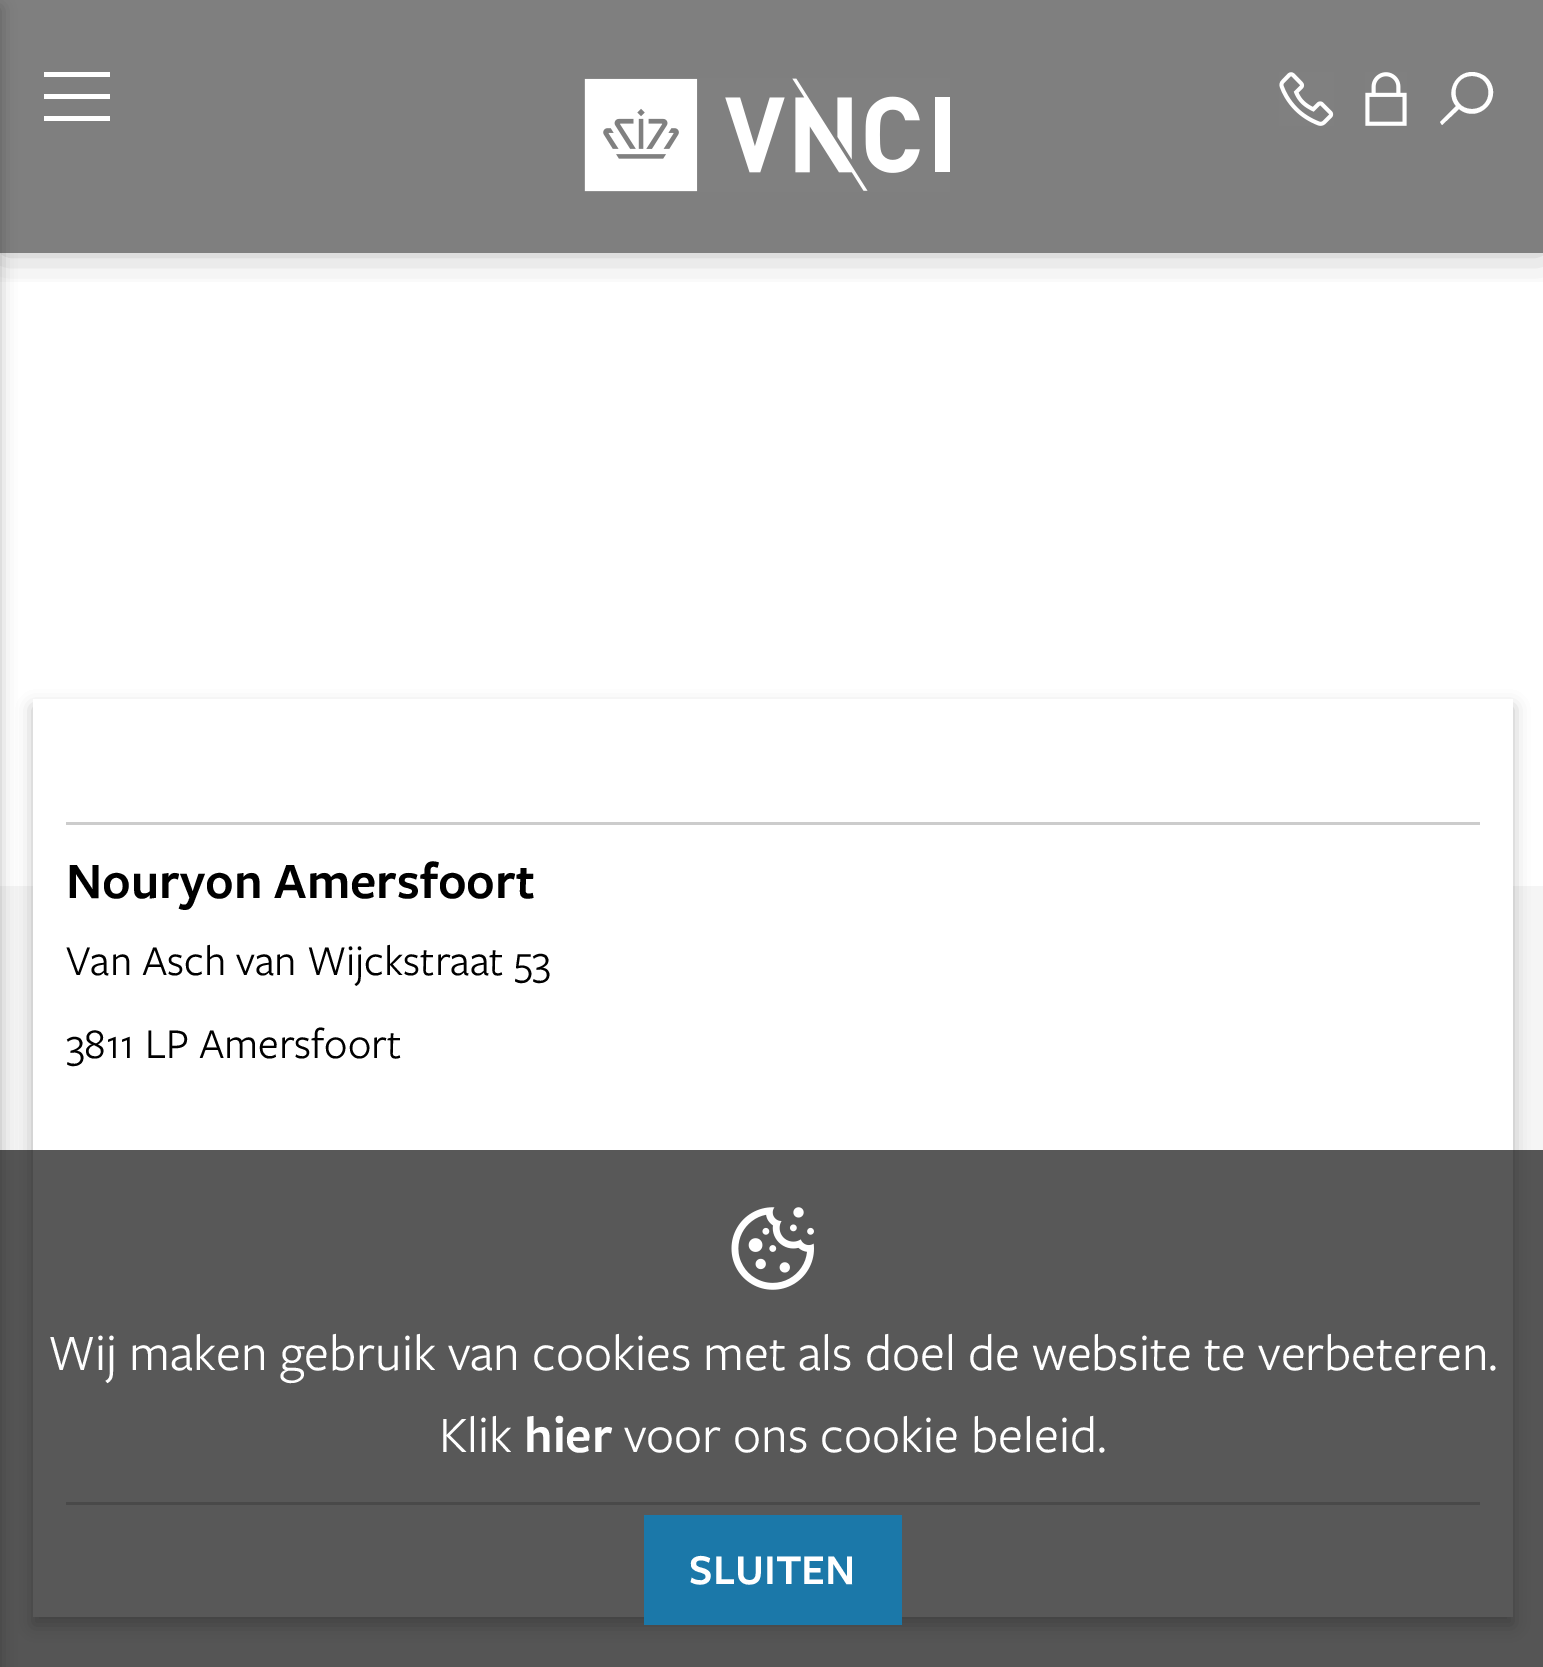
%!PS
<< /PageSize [1543 1667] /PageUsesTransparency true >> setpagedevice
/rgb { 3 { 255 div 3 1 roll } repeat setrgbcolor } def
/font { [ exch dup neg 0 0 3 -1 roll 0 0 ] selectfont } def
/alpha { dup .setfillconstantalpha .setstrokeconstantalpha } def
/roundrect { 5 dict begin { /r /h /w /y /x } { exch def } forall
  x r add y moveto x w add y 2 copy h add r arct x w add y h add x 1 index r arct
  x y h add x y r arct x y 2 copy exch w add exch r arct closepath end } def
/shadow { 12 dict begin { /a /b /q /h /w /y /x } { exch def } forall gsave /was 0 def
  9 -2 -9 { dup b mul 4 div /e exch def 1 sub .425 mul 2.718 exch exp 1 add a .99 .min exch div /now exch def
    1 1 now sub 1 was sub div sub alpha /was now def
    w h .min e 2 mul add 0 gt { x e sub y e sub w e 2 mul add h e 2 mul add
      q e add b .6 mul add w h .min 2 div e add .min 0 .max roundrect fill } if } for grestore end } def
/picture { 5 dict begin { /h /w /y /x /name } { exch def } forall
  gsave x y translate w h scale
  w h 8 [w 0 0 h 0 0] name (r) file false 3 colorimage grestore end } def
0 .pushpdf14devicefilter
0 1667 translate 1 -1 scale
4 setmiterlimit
255 255 255 rgb
0 0 1543 1667 rectfill
245 245 245 rgb
0 886 1543 781 rectfill
0 0 0 rgb
-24 8 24 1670 0 8 0.1 shadow
-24 8 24 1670 0 8 0.16 shadow
gsave
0 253 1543 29 rectclip
0 0 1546 253 0 20.5 0.25 shadow
grestore
0.5 alpha
0 0 1543 253 rectfill
1 alpha
255 255 255 rgb
44 72 moveto 44 77 lineto 110 77 lineto 110 72 lineto closepath 44 94 moveto 44 99 lineto 110 99 lineto 110 94 lineto closepath 44 116 moveto 44 121 lineto 110 121 lineto 110 116 lineto closepath fill
(img/1.rgb) 584 78 366 114 picture
(img/2.rgb) 1279 72 55 54 picture
(img/3.rgb) 1365 72 42 54 picture
1472 72 moveto 1455 72 1445 93 1456 106 curveto 1440 122 lineto 1442 125 lineto 1459 109 lineto 1479 125 1505 97 1487 78 curveto 1483 74 1477 72 1472 72 curveto closepath 1472 76 moveto 1494 76 1494 109 1472 109 curveto 1450 109 1450 76 1472 76 curveto closepath fill
0 0 0 rgb
33 707 1480 918 0 8 0.1 shadow
33 707 1480 918 0 8 0.16 shadow
[
  [33 699 1480 918 255 255 255]
  [66 822 1414 3 204 204 204]
  [66 1502 1414 3 204 204 204]
] { aload pop rgb rectfill } forall
0.7 alpha
[
  [0 1150 1543 517 17 17 17]
] { aload pop rgb rectfill } forall
1 alpha
(img/4.rgb) 731 1207 83 83 picture
27 120 169 rgb
644 1515 258 110 rectfill
/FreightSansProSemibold-SemiBold 52.8 font
0 0 0 rgb
66 898 moveto (Nouryon Amersfoort) show
/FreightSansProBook-Regular 44 font
66 975 moveto (Van Asch van Wijckstraat 53) show
66 1058 moveto (3811 LP Amersfoort) show
/FreightSansProBook-Regular 52.8 font
255 255 255 rgb
48 1370 moveto (Wij maken gebruik van cookies met als doel de website te verbeteren.) show
439 1452 moveto (Klik) show
/FreightSansProSemibold-SemiBold 52.8 font
524 1452 moveto (hier) show
/FreightSansProBook-Regular 52.8 font
624 1452 moveto (voor ons cookie beleid.) show
/FreightSansProSemibold-SemiBold 44 font
689 1584 moveto (SLUITEN) show
.poppdf14devicefilter showpage
